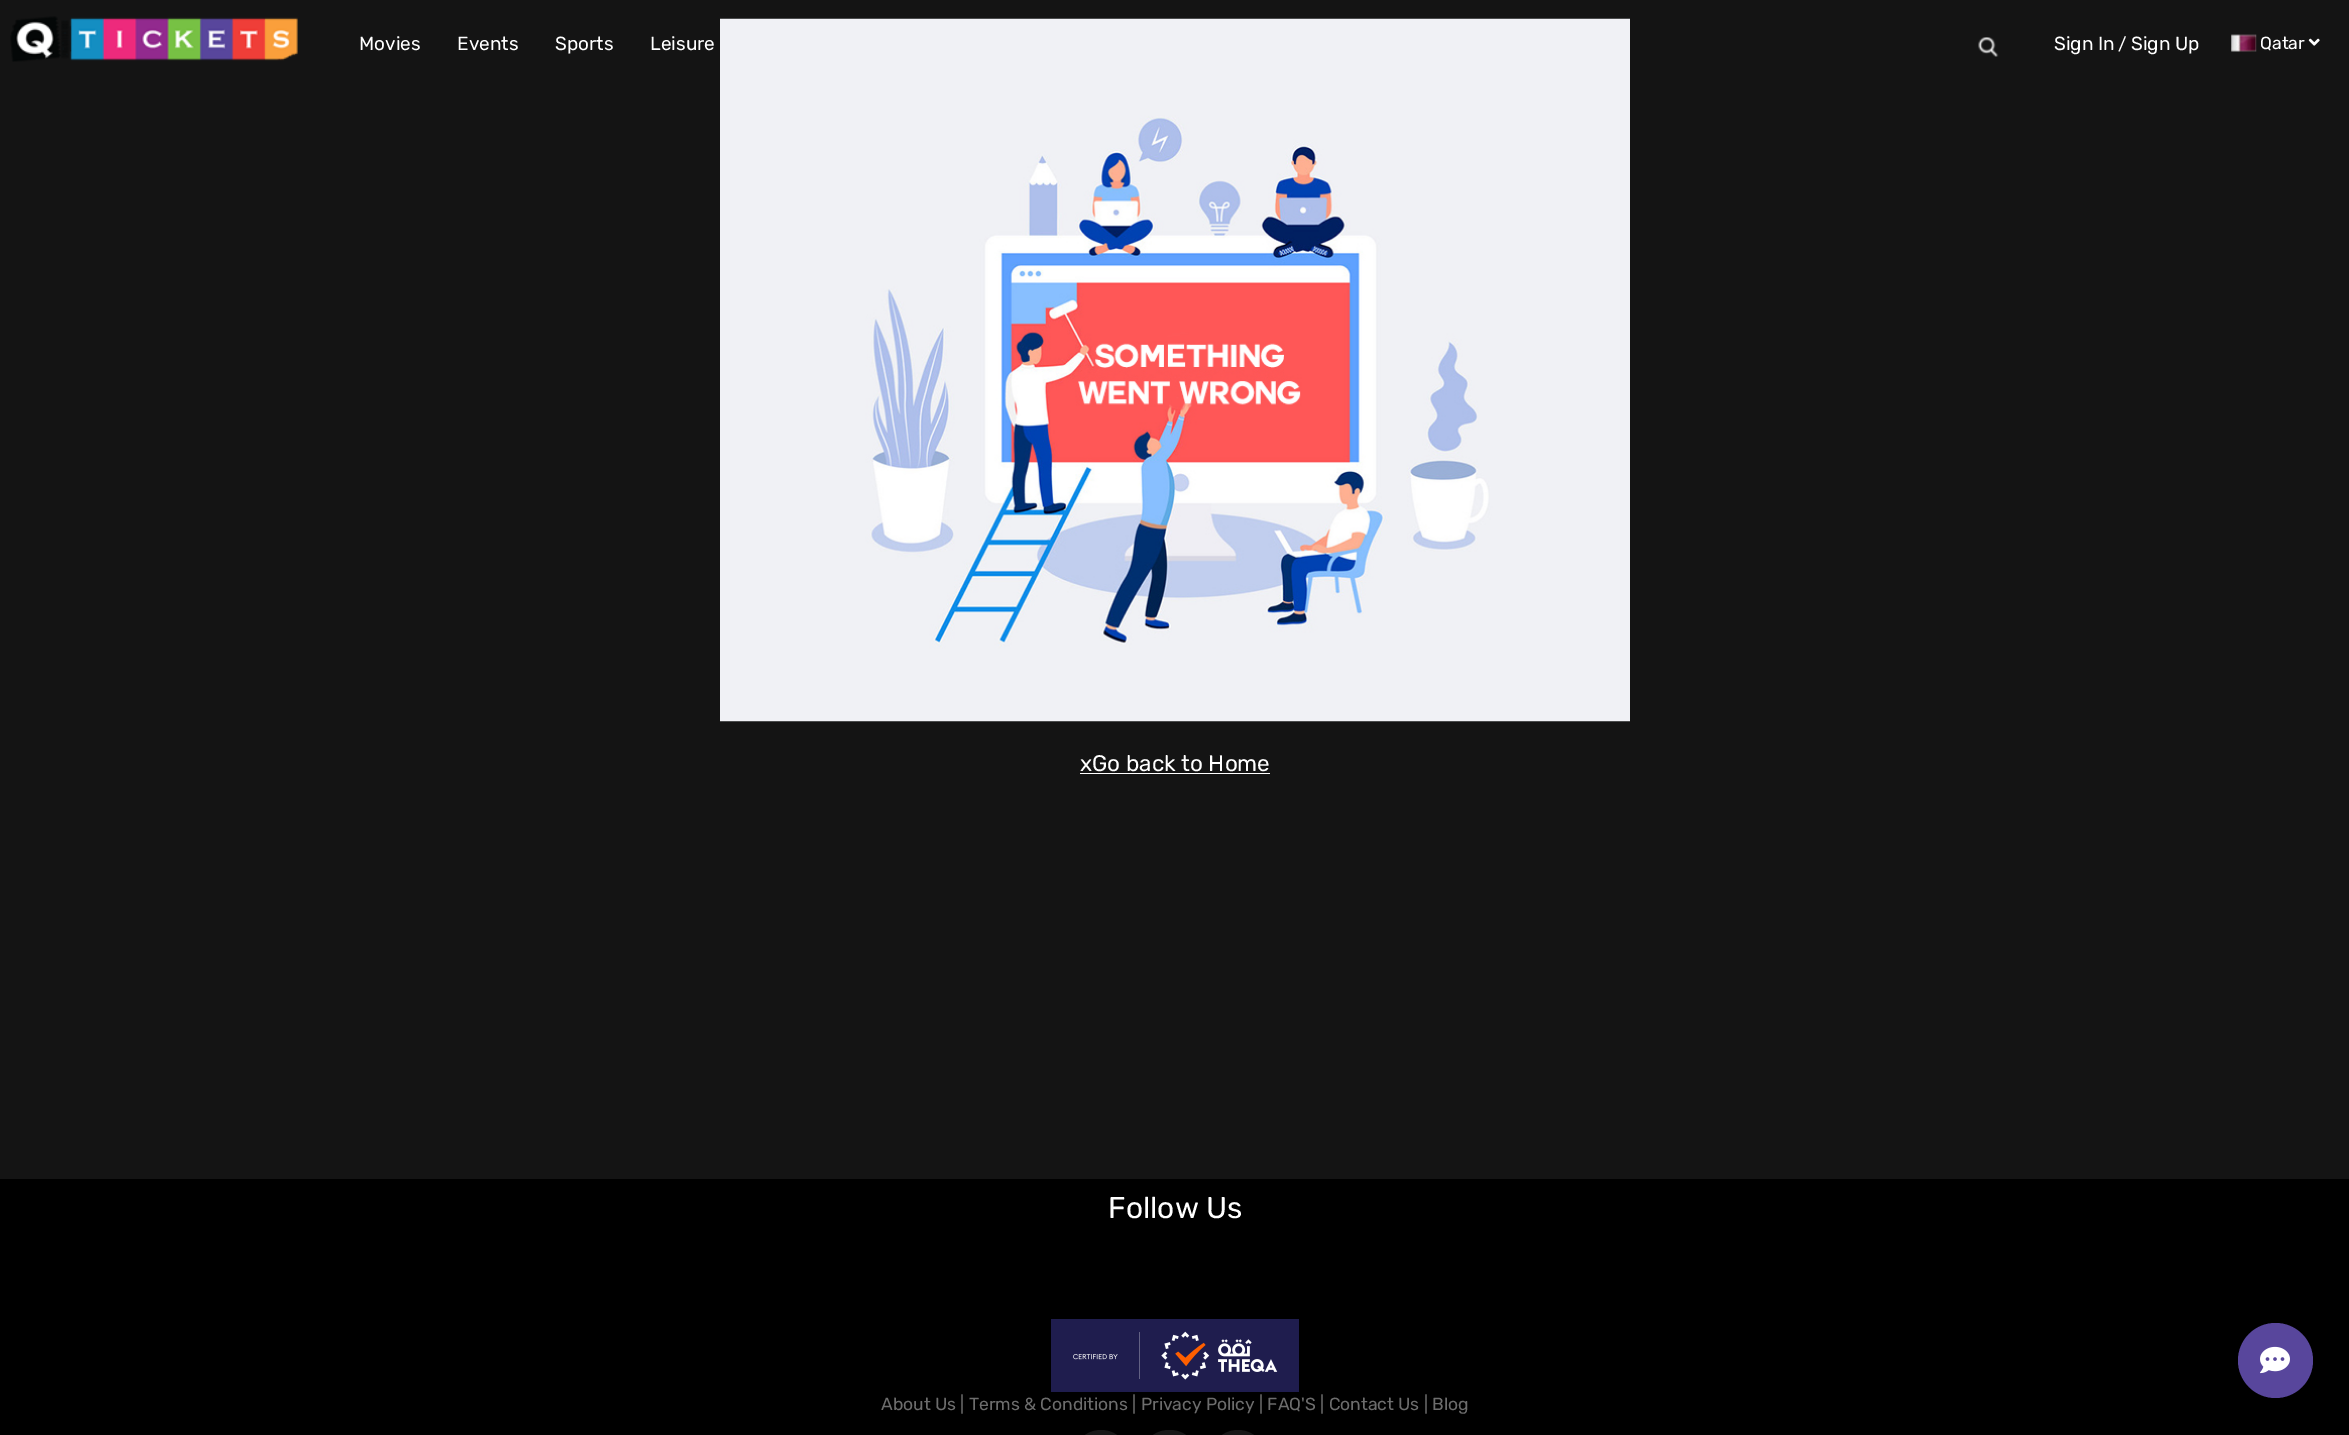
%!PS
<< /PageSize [2349 1435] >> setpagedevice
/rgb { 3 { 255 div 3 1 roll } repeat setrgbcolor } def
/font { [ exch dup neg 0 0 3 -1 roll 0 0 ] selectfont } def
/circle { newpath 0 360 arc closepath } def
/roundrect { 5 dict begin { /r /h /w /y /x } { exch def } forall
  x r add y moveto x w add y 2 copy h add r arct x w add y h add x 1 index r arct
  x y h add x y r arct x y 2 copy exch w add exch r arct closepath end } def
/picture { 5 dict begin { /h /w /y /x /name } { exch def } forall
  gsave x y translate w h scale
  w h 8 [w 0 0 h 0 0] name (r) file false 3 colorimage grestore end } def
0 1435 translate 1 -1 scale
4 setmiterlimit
20 20 20 rgb
0 0 2349 1435 rectfill
(img/1.rgb) 10 16 288 46 picture
(img/2.rgb) 1978 37 21 20 picture
(img/3.rgb) 2231 34 26 18 picture
(img/4.rgb) 2308 38 12 8 picture
(img/5.rgb) 720 18 910 704 picture
255 255 255 rgb
1080 773 190 1 rectfill
0 0 0 rgb
0 1179 2349 256 rectfill
(img/6.rgb) 1051 1319 248 73 picture
23 23 23 rgb
1073 1430 56 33 28 roundrect fill
1141 1430 57 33 28 roundrect fill
1210 1430 56 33 28 roundrect fill
88 70 156 rgb
2275.5 1360.5 37.5 circle fill
(img/7.rgb) 2260 1346 30 28 picture
/Rubik-Light 19 font
255 255 255 rgb
[
  [(Movies) 359 50]
  [(Events) 457 50]
  [(Sports) 555 50]
  [(Leisure) 650 50]
  [(Sign In) 2054 50]
] { aload pop moveto show } forall
/Rubik-Light 17.5 font
2118 50 moveto (/) show
/Rubik-Light 19 font
2131 50 moveto (Sign Up) show
/Rubik-Light 17.5 font
2260 49 moveto (Qatar) show
/Rubik-Light 22.5 font
1080 771 moveto (xGo back to Home) show
/Rubik-Light 30 font
1108 1218 moveto (Follow Us) show
/Rubik-Light 17.5 font
109 109 109 rgb
881 1410 moveto (About Us | Terms & Conditions | Privacy Policy | FAQ'S | Contact Us | Blog) show
showpage
